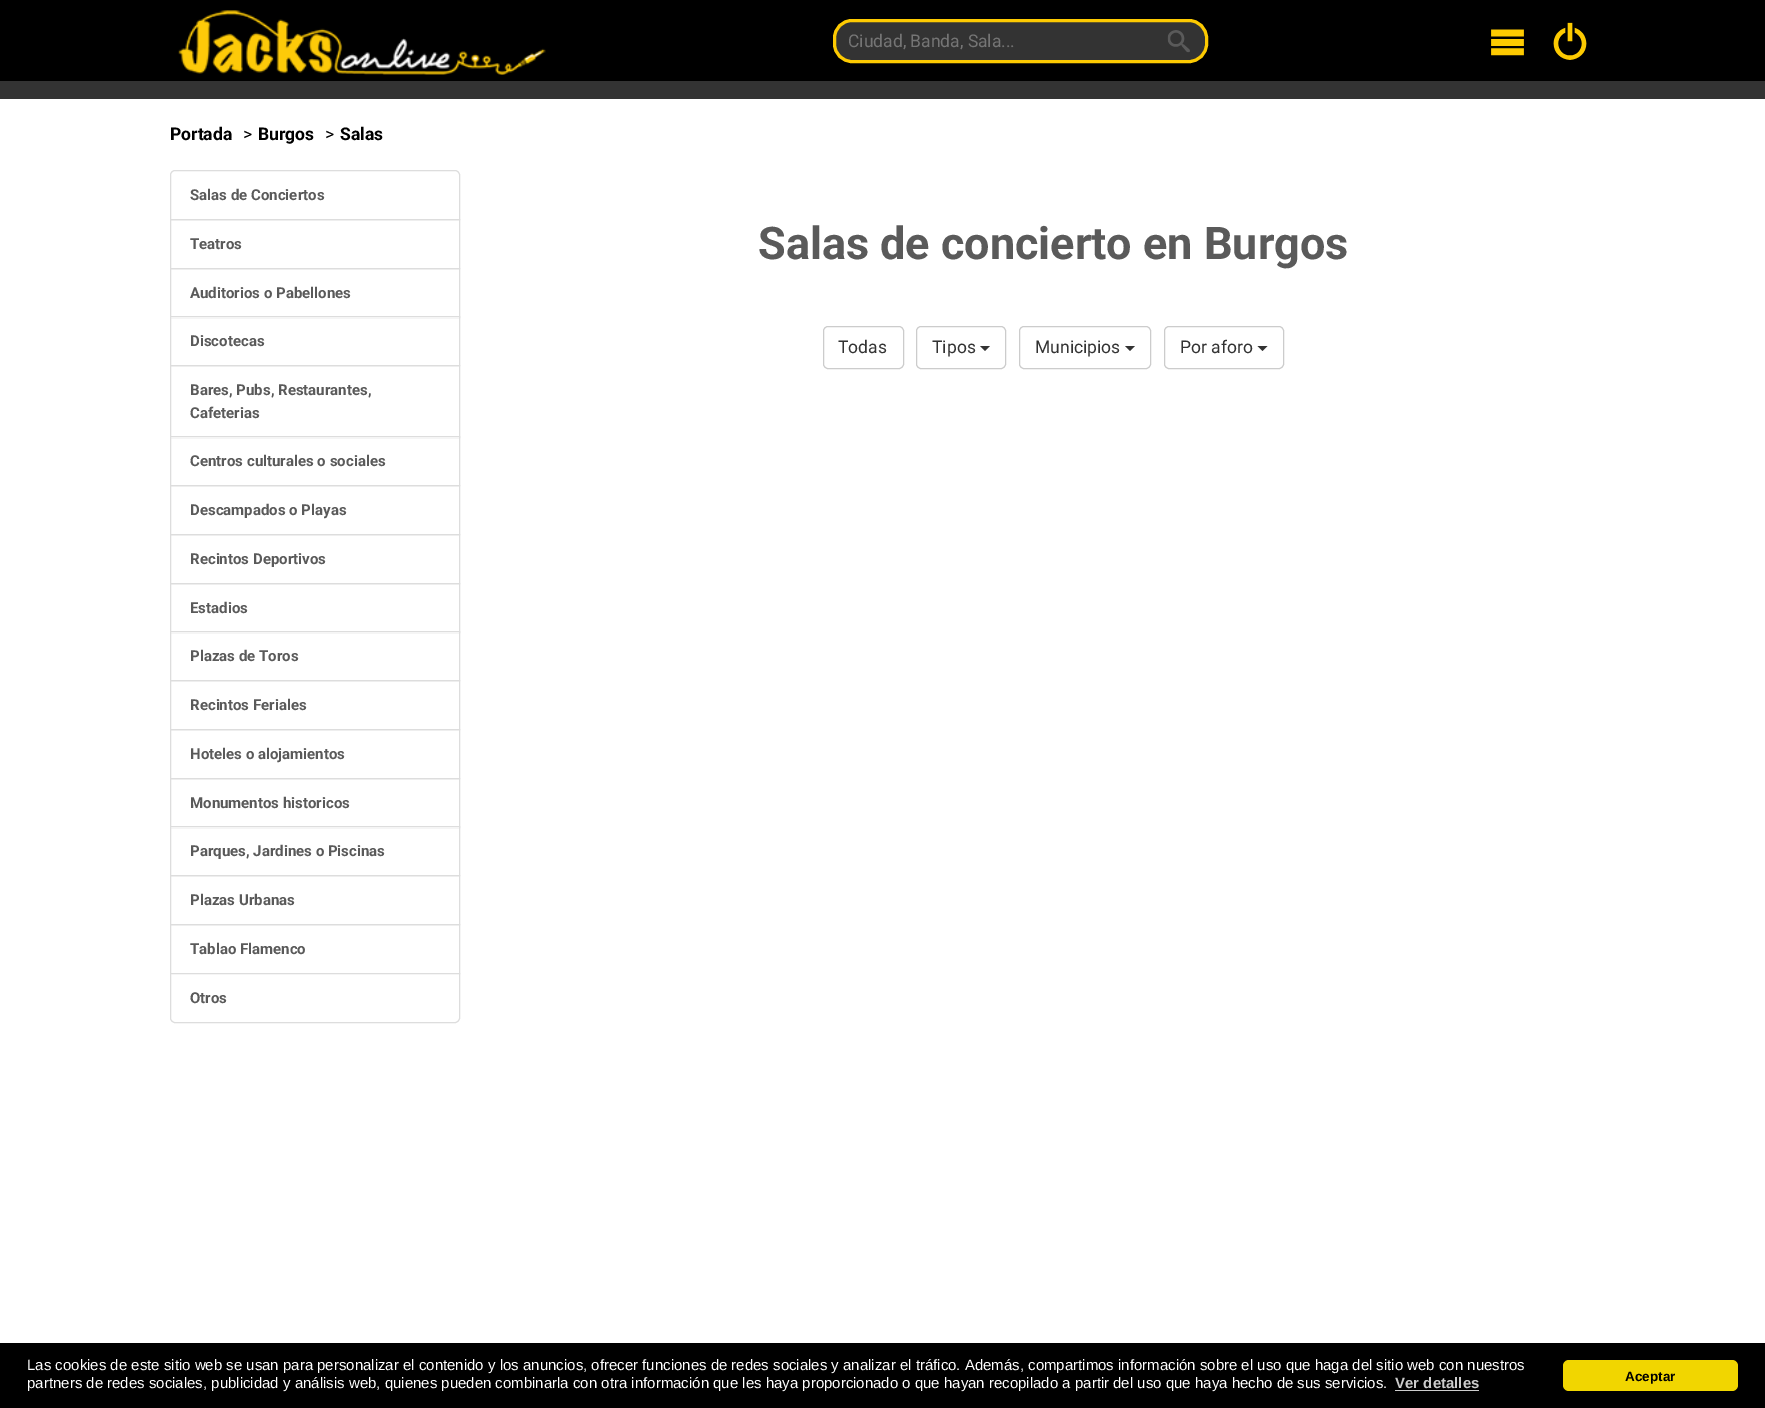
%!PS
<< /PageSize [1765 1408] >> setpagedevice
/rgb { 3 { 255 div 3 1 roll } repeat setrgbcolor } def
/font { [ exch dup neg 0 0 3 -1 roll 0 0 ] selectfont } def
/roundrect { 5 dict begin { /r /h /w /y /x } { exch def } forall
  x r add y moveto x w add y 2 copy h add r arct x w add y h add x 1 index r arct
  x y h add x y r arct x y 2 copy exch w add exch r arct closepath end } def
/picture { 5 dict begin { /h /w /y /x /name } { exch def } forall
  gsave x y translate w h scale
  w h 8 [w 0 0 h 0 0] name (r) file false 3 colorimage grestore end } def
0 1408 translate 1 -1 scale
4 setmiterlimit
255 255 255 rgb
0 0 1765 1408 rectfill
51 51 51 rgb
0 81 1765 18 rectfill
0 0 0 rgb
0 0 1765 81 rectfill
(img/1.rgb) 178 10 368 65 picture
51 51 51 rgb
834.5 20.5 372 41 17.5 roundrect gsave fill grestore
253 202 1 rgb
3 setlinewidth
stroke
(img/2.rgb) 1167 30 23 23 picture
(img/3.rgb) 1491 29 33 27 picture
(img/4.rgb) 1553 22 34 38 picture
221 221 221 rgb
1 setlinewidth
175 170.5 moveto 455 170.5 lineto 457.5 170.5 459.5 172.5 459.5 175 curveto 459.5 219.5 lineto 170.5 219.5 lineto 170.5 175 lineto 170.5 172.5 172.5 170.5 175 170.5 curveto closepath stroke
170.5 219.5 289 49 rectstroke
170.5 268.5 289 49 rectstroke
255 255 255 rgb
171 317 288 1 rectfill
221 221 221 rgb
170.5 316.5 289 49 rectstroke
170.5 365.5 289 72 rectstroke
255 255 255 rgb
171 437 288 1 rectfill
221 221 221 rgb
170.5 436.5 289 49 rectstroke
170.5 485.5 289 49 rectstroke
170.5 534.5 289 49 rectstroke
170.5 583.5 289 49 rectstroke
255 255 255 rgb
171 632 288 1 rectfill
221 221 221 rgb
170.5 631.5 289 49 rectstroke
170.5 680.5 289 49 rectstroke
170.5 729.5 289 49 rectstroke
170.5 778.5 289 49 rectstroke
255 255 255 rgb
171 827 288 1 rectfill
221 221 221 rgb
170.5 826.5 289 49 rectstroke
170.5 875.5 289 49 rectstroke
170.5 924.5 289 49 rectstroke
255 255 255 rgb
170.5 973.5 moveto 459.5 973.5 lineto 459.5 1018 lineto 459.5 1020.5 457.5 1022.5 455 1022.5 curveto 175 1022.5 lineto 172.5 1022.5 170.5 1020.5 170.5 1018 curveto closepath gsave fill grestore
221 221 221 rgb
stroke
204 204 204 rgb
823.5 326.5 80 42 4.5 roundrect stroke
916.5 326.5 89 42 4.5 roundrect stroke
51 51 51 rgb
980 346 moveto 990 346 lineto 985 351 lineto closepath fill
204 204 204 rgb
1019.5 326.5 131 42 4.5 roundrect stroke
51 51 51 rgb
1125 346 moveto 1135 346 lineto 1130 351 lineto closepath fill
204 204 204 rgb
1164.5 326.5 119 42 4.5 roundrect stroke
51 51 51 rgb
1257.5 346 moveto 1267.5 346 lineto 1262.5 351 lineto closepath fill
0 0 0 rgb
0 1343 1765 65 rectfill
204 204 204 rgb
1395 1390 84 1 rectfill
241 214 0 rgb
1563 1360 175 31 6 roundrect fill
/Roboto-Regular 17.5 font
117 117 117 rgb
848 47 moveto (Ciudad, Banda, Sala...) show
/Roboto-Bold 17.5 font
0 0 0 rgb
170 140 moveto (Portada) show
/Roboto-Regular 17.5 font
243 140 moveto (>) show
/Roboto-Bold 17.5 font
258 140 moveto (Burgos) show
/Roboto-Regular 17.5 font
325 140 moveto (>) show
/Roboto-Bold 17.5 font
340 140 moveto (Salas) show
/Roboto-Bold 15 font
90 90 90 rgb
[
  [(Salas de Conciertos) 190 200]
  [(Teatros) 190 249]
  [(Auditorios o Pabellones) 190 298]
  [(Discotecas) 190 346]
  [(Bares, Pubs, Restaurantes,) 190 395]
  [(Cafeterias) 190 418]
  [(Centros culturales o sociales) 190 466]
  [(Descampados o Playas) 190 515]
  [(Recintos Deportivos) 190 564]
  [(Estadios) 190 613]
  [(Plazas de Toros) 190 661]
  [(Recintos Feriales) 190 710]
  [(Hoteles o alojamientos) 190 759]
  [(Monumentos historicos) 190 808]
  [(Parques, Jardines o Piscinas) 190 856]
  [(Plazas Urbanas) 190 905]
  [(Tablao Flamenco) 190 954]
  [(Otros) 190 1003]
] { aload pop moveto show } forall
/Roboto-Bold 45 font
758 259 moveto (Salas de concierto en Burgos) show
/Roboto-Regular 17.5 font
51 51 51 rgb
[
  [(Todas) 838 353]
  [(Tipos) 932 353]
  [(Municipios) 1035 353]
  [(Por aforo) 1180 353]
] { aload pop moveto show } forall
/LiberationSans-Regular 15 font
255 255 255 rgb
27 1370 moveto (Las cookies de este sitio web se usan para personalizar el contenido y los anuncios, ofrecer funciones de redes sociales y analizar el tráfico. Además, compartimos información sobre el uso que haga del sitio web con nuestros) show
27 1388 moveto (partners de redes sociales, publicidad y análisis web, quienes pueden combinarla con otra información que les haya proporcionado o que hayan recopilado a partir del uso que haya hecho de sus servicios.) show
/LiberationSans-Bold 15 font
204 204 204 rgb
1395 1388 moveto (Ver detalles) show
/LiberationSans-Bold 13.5 font
0 0 0 rgb
1625 1381 moveto (Aceptar) show
showpage
